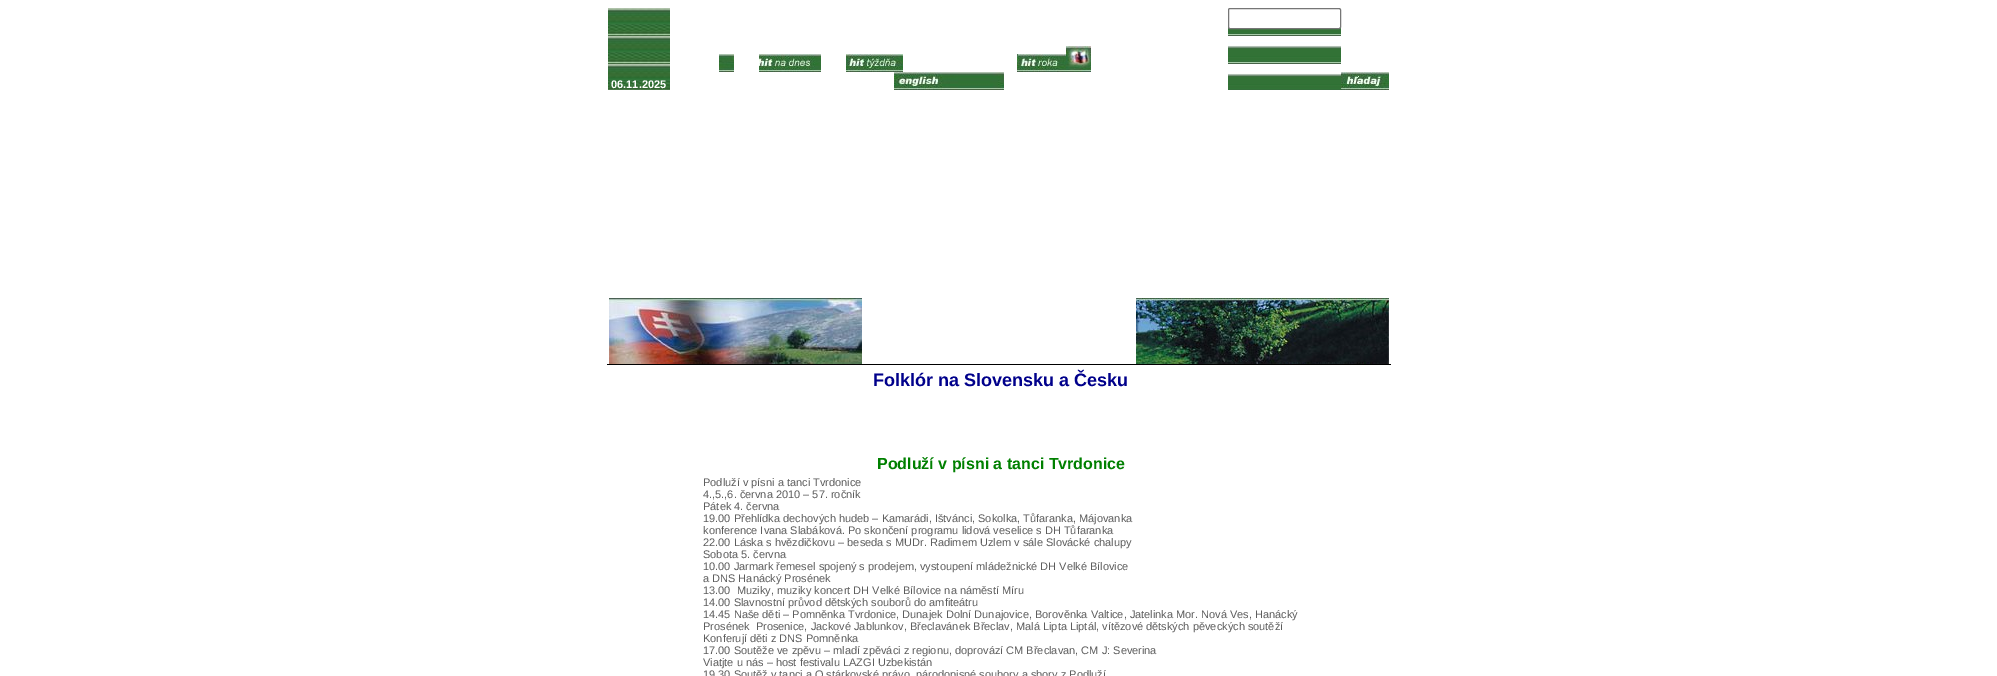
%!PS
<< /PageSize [1997 676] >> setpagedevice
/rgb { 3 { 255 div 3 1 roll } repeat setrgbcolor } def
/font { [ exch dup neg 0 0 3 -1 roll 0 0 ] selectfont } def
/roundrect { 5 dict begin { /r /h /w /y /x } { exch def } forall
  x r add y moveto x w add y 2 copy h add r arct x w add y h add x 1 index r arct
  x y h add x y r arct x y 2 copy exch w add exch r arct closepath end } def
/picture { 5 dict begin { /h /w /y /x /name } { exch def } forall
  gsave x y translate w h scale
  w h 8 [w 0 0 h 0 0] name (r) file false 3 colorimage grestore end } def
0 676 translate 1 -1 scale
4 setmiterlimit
255 255 255 rgb
0 0 1997 676 rectfill
(img/1.rgb) 608 8 62 82 picture
(img/2.rgb) 719 54 15 18 picture
(img/3.rgb) 759 54 62 18 picture
(img/4.rgb) 846 54 57 18 picture
(img/5.rgb) 1017 54 49 18 picture
(img/6.rgb) 1066 46 25 26 picture
(img/7.rgb) 894 72 110 18 picture
(img/8.rgb) 1228 27 113 63 picture
1228.5 8.5 112 20 1.5 roundrect gsave fill grestore
118 118 118 rgb
stroke
(img/9.rgb) 1341 72 48 18 picture
(img/10.rgb) 609 298 253 66 picture
(img/11.rgb) 1136 298 253 66 picture
0 0 0 rgb
607 364 784 1 rectfill
/LiberationSans-Bold 11 font
255 255 255 rgb
611 88 moveto (06.11.2025) show
/LiberationSans-Bold 18 font
0 0 139 rgb
873 386 moveto (Folklór na Slovensku a Česku) show
/LiberationSans-Bold 16 font
0 128 0 rgb
877 469 moveto (Podluží v písni a tanci Tvrdonice) show
/LiberationSans-Regular 11 font
93 93 93 rgb
[
  [(Podluží v písni a tanci Tvrdonice) 703 486]
  [(4.,5.,6. června 2010 – 57. ročník) 703 498]
  [(Pátek 4. června) 703 510]
  [(19.00 Přehlídka dechových hudeb – Kamarádi, Ištvánci, Sokolka, Tůfaranka, Májovanka) 703 522]
  [(konference Ivana Slabáková. Po skončení programu lidová veselice s DH Tůfaranka) 703 534]
  [(22.00 Láska s hvězdičkovu – beseda s MUDr. Radimem Uzlem v sále Slovácké chalupy) 703 546]
  [(Sobota 5. června) 703 558]
  [(10.00 Jarmark řemesel spojený s prodejem, vystoupení mládežnické DH Velké Bílovice) 703 570]
  [(a DNS Hanácký Prosének) 703 582]
  [(13.00  Muziky, muziky koncert DH Velké Bílovice na náměstí Míru) 703 594]
  [(14.00 Slavnostní průvod dětských souborů do amfiteátru) 703 606]
  [(14.45 Naše děti – Pomněnka Tvrdonice, Dunajek Dolní Dunajovice, Borověnka Valtice, Jatelinka Mor. Nová Ves, Hanácký) 703 618]
  [(Prosének  Prosenice, Jackové Jablunkov, Břeclavánek Břeclav, Malá Lipta Liptál, vítězové dětských pěveckých soutěží) 703 630]
  [(Konferují děti z DNS Pomněnka) 703 642]
  [(17.00 Soutěže ve zpěvu – mladí zpěváci z regionu, doprovází CM Břeclavan, CM J: Severina) 703 654]
  [(Viatjte u nás – host festivalu LAZGI Uzbekistán) 703 666]
  [(19.30 Soutěž v tanci a O stárkovské právo, národopisné soubory a sbory z Podluží) 703 678]
] { aload pop moveto show } forall
showpage
